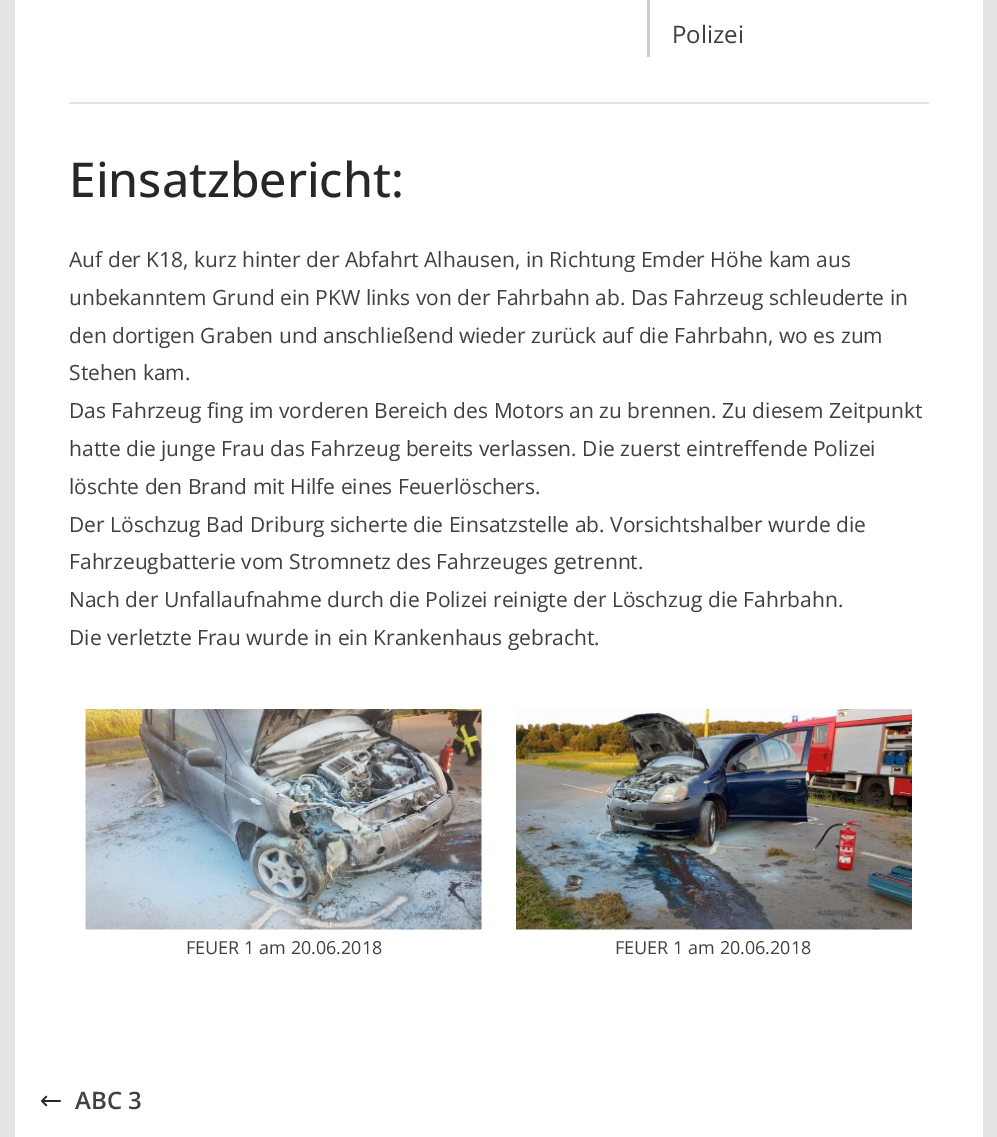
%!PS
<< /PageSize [997 1137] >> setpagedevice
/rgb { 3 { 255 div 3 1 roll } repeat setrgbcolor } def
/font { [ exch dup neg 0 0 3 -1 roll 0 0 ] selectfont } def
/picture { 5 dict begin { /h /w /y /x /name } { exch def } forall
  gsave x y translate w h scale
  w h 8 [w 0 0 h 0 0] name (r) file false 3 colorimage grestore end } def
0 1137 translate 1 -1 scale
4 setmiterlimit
228 228 231 rgb
0 0 997 1137 rectfill
[
  [15 0 968 1137 255 255 255]
  [647 0 3 57 204 204 204]
  [69 102 860 2 228 228 231]
] { aload pop rgb rectfill } forall
(img/1.rgb) 85 709 397 221 picture
(img/2.rgb) 516 709 396 221 picture
(img/3.rgb) 41 1095 20 12 picture
/OpenSans-Regular 24 font
63 63 70 rgb
672 43 moveto (Polizei) show
/OpenSans-Medium 48 font
39 39 42 rgb
69 197 moveto (Einsatzbericht:) show
/OpenSans-Regular 21 font
63 63 70 rgb
[
  [(Auf der K18, kurz hinter der Abfahrt Alhausen, in Richtung Emder Höhe kam aus) 69 267]
  [(unbekanntem Grund ein PKW links von der Fahrbahn ab. Das Fahrzeug schleuderte in) 69 305]
  [(den dortigen Graben und anschließend wieder zurück auf die Fahrbahn, wo es zum) 69 343]
  [(Stehen kam.) 69 380]
  [(Das Fahrzeug fing im vorderen Bereich des Motors an zu brennen. Zu diesem Zeitpunkt) 69 418]
  [(hatte die junge Frau das Fahrzeug bereits verlassen. Die zuerst eintreffende Polizei) 69 456]
  [(löschte den Brand mit Hilfe eines Feuerlöschers.) 69 494]
  [(Der Löschzug Bad Driburg sicherte die Einsatzstelle ab. Vorsichtshalber wurde die) 69 532]
  [(Fahrzeugbatterie vom Stromnetz des Fahrzeuges getrennt.) 69 569]
  [(Nach der Unfallaufnahme durch die Polizei reinigte der Löschzug die Fahrbahn.) 69 607]
  [(Die verletzte Frau wurde in ein Krankenhaus gebracht.) 69 645]
] { aload pop moveto show } forall
/OpenSans-Regular 18 font
186 954 moveto (FEUER 1 am 20.06.2018) show
615 954 moveto (FEUER 1 am 20.06.2018) show
/OpenSans-SemiBold 24 font
75 1109 moveto (ABC 3) show
showpage
